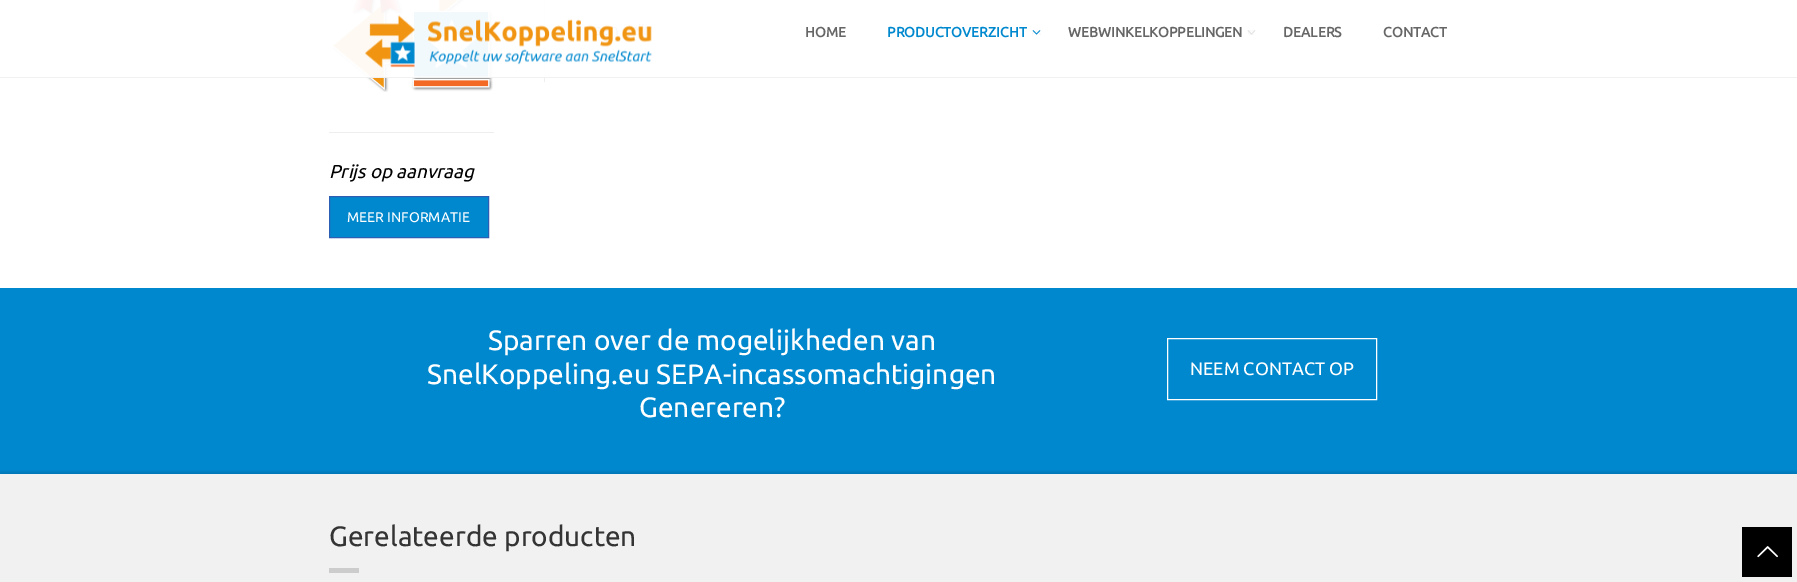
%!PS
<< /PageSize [1797 582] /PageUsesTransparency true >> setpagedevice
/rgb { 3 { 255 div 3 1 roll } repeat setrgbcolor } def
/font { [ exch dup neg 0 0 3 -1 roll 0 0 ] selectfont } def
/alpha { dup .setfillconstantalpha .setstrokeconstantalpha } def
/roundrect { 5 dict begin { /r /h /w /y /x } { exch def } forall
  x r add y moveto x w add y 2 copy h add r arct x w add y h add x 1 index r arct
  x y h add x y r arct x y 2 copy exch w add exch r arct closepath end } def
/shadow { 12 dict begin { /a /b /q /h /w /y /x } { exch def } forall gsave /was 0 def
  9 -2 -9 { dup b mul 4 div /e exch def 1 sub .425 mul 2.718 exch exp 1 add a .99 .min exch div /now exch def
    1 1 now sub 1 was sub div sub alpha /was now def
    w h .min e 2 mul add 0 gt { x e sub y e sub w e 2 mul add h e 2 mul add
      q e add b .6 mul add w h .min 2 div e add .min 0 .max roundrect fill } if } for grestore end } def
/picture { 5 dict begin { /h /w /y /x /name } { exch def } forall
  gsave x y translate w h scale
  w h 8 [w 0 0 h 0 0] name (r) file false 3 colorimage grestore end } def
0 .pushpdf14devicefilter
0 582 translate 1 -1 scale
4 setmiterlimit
255 255 255 rgb
0 0 1797 582 rectfill
238 238 238 rgb
544 0 1 82 rectfill
(img/4.rgb) 331 0 162 92 picture
0.95 alpha
255 255 255 rgb
331 0 214 77 rectfill
1 alpha
241 241 241 rgb
0 77 1797 1 rectfill
(img/1.rgb) 365 15 287 53 picture
(img/2.rgb) 1032 30 9 5 picture
(img/3.rgb) 1247 30 9 5 picture
238 238 238 rgb
329 132 165 1 rectfill
0 136 206 rgb
329.5 196.5 moveto 488.5 196.5 lineto 488.5 237.5 lineto 329.5 237.5 lineto closepath gsave fill grestore
44 95 179 rgb
stroke
0 136 206 rgb
0 288 1797 186 rectfill
255 255 255 rgb
1167.5 338.5 209 61 rectstroke
241 241 241 rgb
0 474 1797 108 rectfill
gsave
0 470 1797 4 rectclip
0 0 0 rgb
0 472 1797 5 0 1.5 0.13 shadow
grestore
204 204 204 rgb
329 568 30 5 rectfill
0 0 0 rgb
1742 527 50 50 rectfill
(img/5.rgb) 1757 546 21 12 picture
/Ubuntu-Bold 14 font
102 102 102 rgb
805 37 moveto (HOME) show
0 136 206 rgb
887 37 moveto (PRODUCTOVERZICHT) show
102 102 102 rgb
[
  [(WEBWINKELKOPPELINGEN) 1068 37]
  [(DEALERS) 1283 37]
  [(CONTACT) 1383 37]
] { aload pop moveto show } forall
/Ubuntu-Italic 18.75 font
0 0 0 rgb
329 178 moveto (Prijs op aanvraag) show
/Ubuntu-Regular 14 font
255 255 255 rgb
347 222 moveto (MEER INFORMATIE) show
/Ubuntu-Regular 28 font
[
  [(Sparren over de mogelijkheden van) 488 350]
  [(SnelKoppeling.eu SEPA-incassomachtigingen) 427 384]
  [(Genereren?) 639 417]
] { aload pop moveto show } forall
/Ubuntu-Regular 18 font
1190 375 moveto (NEEM CONTACT OP) show
/Ubuntu-Regular 28 font
52 52 52 rgb
329 546 moveto (Gerelateerde producten) show
.poppdf14devicefilter showpage
